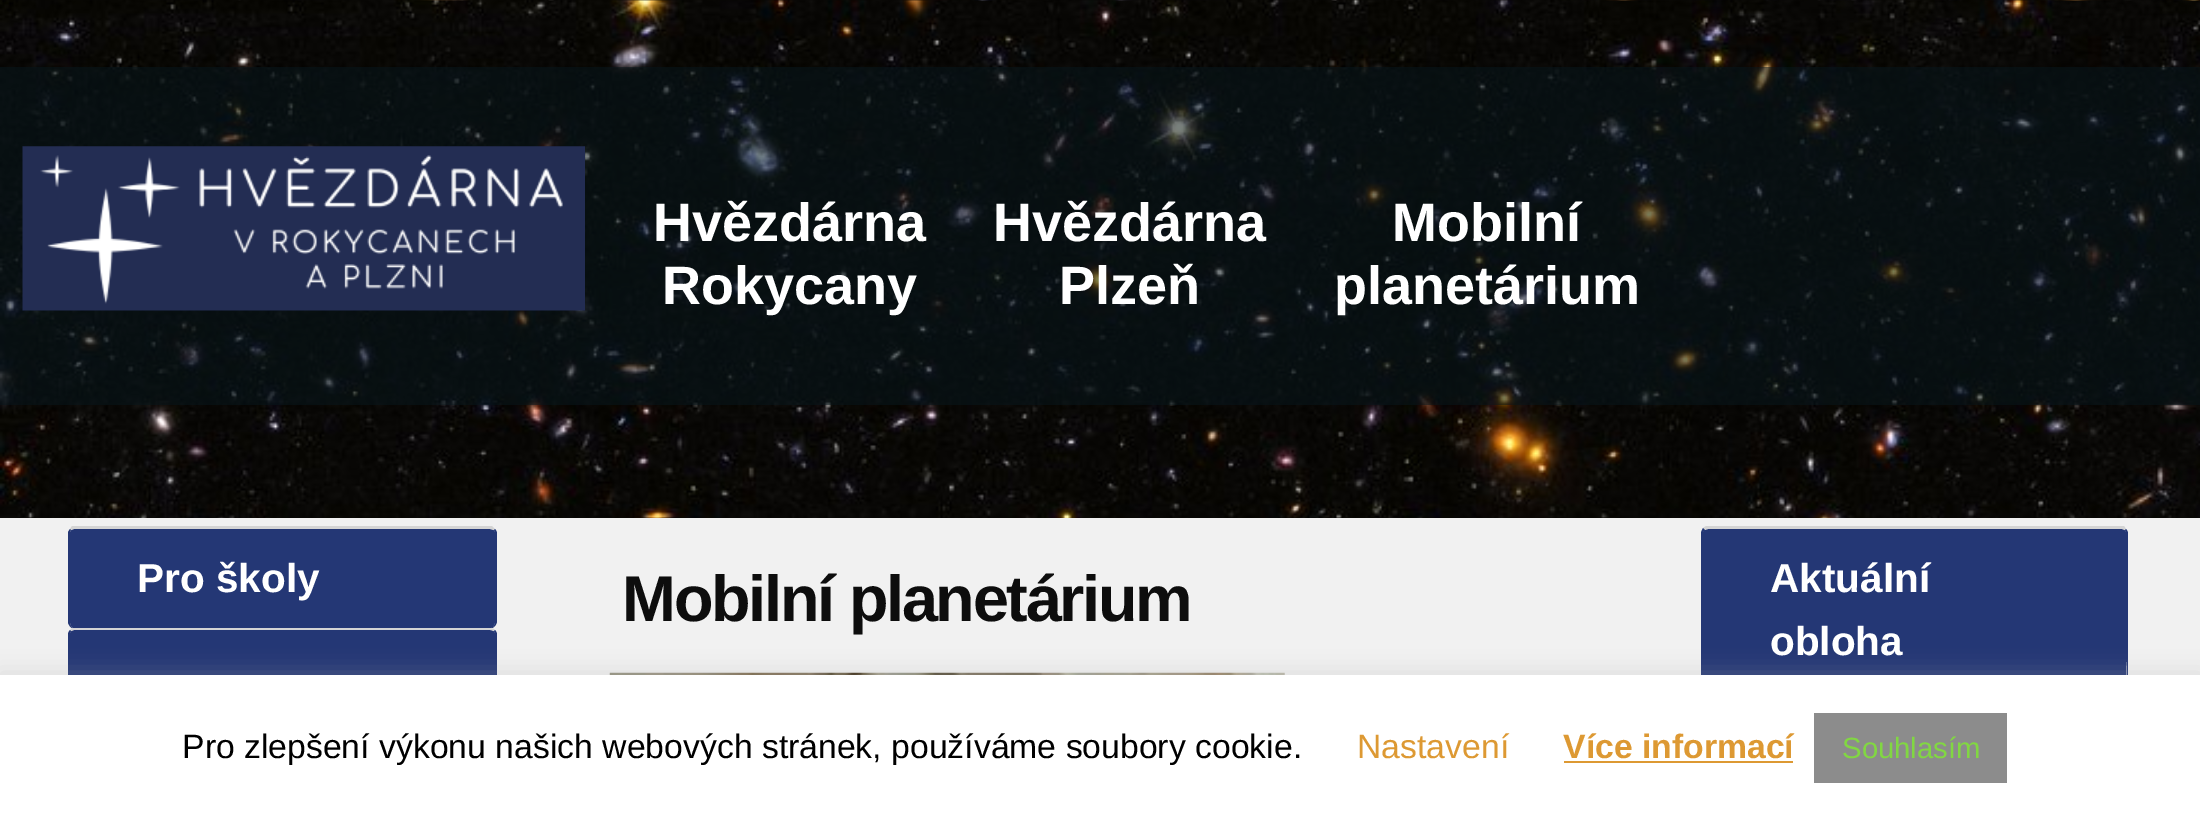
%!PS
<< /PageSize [2200 820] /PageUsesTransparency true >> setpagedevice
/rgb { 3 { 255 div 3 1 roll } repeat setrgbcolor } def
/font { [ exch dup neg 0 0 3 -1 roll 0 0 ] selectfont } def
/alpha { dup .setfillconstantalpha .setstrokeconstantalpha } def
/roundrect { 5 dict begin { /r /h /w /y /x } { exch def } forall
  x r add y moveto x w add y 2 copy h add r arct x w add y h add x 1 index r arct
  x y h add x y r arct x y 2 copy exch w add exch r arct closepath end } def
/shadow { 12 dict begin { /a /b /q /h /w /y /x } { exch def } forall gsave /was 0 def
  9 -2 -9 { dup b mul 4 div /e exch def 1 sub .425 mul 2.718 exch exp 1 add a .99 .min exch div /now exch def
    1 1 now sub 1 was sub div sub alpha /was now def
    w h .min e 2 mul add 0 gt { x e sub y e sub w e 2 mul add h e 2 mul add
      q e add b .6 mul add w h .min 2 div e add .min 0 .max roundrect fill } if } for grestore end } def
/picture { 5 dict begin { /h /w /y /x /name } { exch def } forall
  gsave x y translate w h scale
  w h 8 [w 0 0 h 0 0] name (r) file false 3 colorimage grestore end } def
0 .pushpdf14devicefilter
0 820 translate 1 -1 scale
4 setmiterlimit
255 255 255 rgb
0 0 2200 820 rectfill
(img/1.rgb) 0 0 2200 518 picture
0.54 alpha
7 22 28 rgb
0 67 2200 338 rectfill
1 alpha
(img/2.rgb) 22 146 563 165 picture
241 241 241 rgb
0 518 2200 157 rectfill
36 55 117 rgb
74 529 moveto 490 529 lineto 493 529 495 531 495 533 curveto 495 621 lineto 495 625 493 628 490 628 curveto 74 628 lineto 72 628 70 625 70 621 curveto 70 533 lineto 70 531 72 529 74 529 curveto closepath fill
212 212 212 rgb
74 529 moveto 71 530 lineto 70 529 lineto 72 526 lineto 492 526 lineto 495 529 lineto 494 530 lineto 490 529 lineto closepath fill
36 55 117 rgb
491 628 moveto 494 626 lineto 495 622 lineto 495 533 lineto 494 530 lineto 495 529 lineto 496 530 497 532 497 533 curveto 497 621 lineto 497 624 495 627 492 628 curveto closepath fill
72 628 moveto 70 627 69 625 68 623 curveto 68 532 lineto 70 529 lineto 71 530 lineto 70 531 70 532 70 533 curveto 70 621 lineto 70 624 71 627 73 628 curveto closepath fill
74 630 moveto 490 630 lineto 493 630 495 632 495 634 curveto 495 722 lineto 495 726 493 729 490 729 curveto 74 729 lineto 72 729 70 726 70 722 curveto 70 634 lineto 70 632 72 630 74 630 curveto closepath fill
212 212 212 rgb
74 628 moveto 490 628 lineto 492 628 494 629 495 630 curveto 494 631 lineto 493 631 492 630 490 630 curveto 74 630 lineto 73 630 72 631 71 631 curveto 70 630 lineto 71 629 72 628 74 628 curveto closepath fill
36 55 117 rgb
495 630 moveto 496 631 497 633 497 634 curveto 497 722 lineto 497 726 494 729 490 729 curveto 491 729 lineto 494 727 lineto 495 723 lineto 495 634 lineto 494 631 lineto closepath fill
71 631 moveto 70 634 lineto 70 722 lineto 70 724 71 729 74 729 curveto 71 729 68 726 68 722 curveto 68 634 lineto 68 633 69 631 70 630 curveto closepath fill
(img/3.rgb) 609 672 676 3 picture
1708 529 moveto 2122 529 lineto 2124 529 2126 531 2126 533 curveto 2126 684 lineto 2126 688 2124 691 2122 691 curveto 1708 691 lineto 1705 691 1703 688 1703 684 curveto 1703 533 lineto 1703 531 1705 529 1708 529 curveto closepath fill
212 212 212 rgb
1708 529 moveto 1705 530 lineto 1703 528 lineto 1706 526 lineto 2124 526 lineto 2126 529 lineto 2125 530 lineto 2122 529 lineto closepath fill
36 55 117 rgb
2123 691 moveto 2129 688 2126 659 2126 659 curveto 2126 533 lineto 2125 530 lineto 2126 529 lineto 2127 530 2128 532 2128 533 curveto 2128 684 lineto 2128 687 2126 690 2124 691 curveto closepath fill
1701 533 moveto 1701 684 lineto 1701 687 1703 690 1706 691 curveto 1707 691 lineto 1704 690 1703 687 1703 684 curveto 1703 533 lineto 1703 532 1704 531 1705 530 curveto 1703 528 lineto 1702 530 1701 532 1701 533 curveto closepath fill
172 171 171 rgb
0 673 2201 146 0 11 0.3 shadow
[
  [0 675 2200 145 255 255 255]
  [1564 761 229 2 221 153 51]
  [1814 713 193 70 140 140 140]
] { aload pop rgb rectfill } forall
/LiberationSans-Bold 54 font
255 255 255 rgb
[
  [(Hvězdárna) 653 241]
  [(Rokycany) 662 304]
  [(Hvězdárna) 993 241]
  [(Plzeň) 1059 304]
  [(Mobilní) 1392 241]
  [(planetárium) 1334 304]
] { aload pop moveto show } forall
/LiberationSans-Bold 40.5 font
137 592 moveto (Pro školy) show
/LiberationSans-Bold 64.75 font
13 13 13 rgb
622 621 moveto -2.25 0 (Mobilní planetárium) ashow
/LiberationSans-Bold 40.5 font
255 255 255 rgb
1770 592 moveto (Aktuální) show
1770 655 moveto (obloha) show
/LiberationSans-Regular 33.75 font
0 0 0 rgb
182 758 moveto (Pro zlepšení výkonu našich webových stránek, používáme soubory cookie.) show
221 153 51 rgb
1357 758 moveto (Nastavení) show
/LiberationSans-Bold 33.75 font
1563 758 moveto (Více informací) show
/LiberationSans-Regular 29.25 font
129 215 66 rgb
1842 758 moveto (Souhlasím) show
.poppdf14devicefilter showpage
